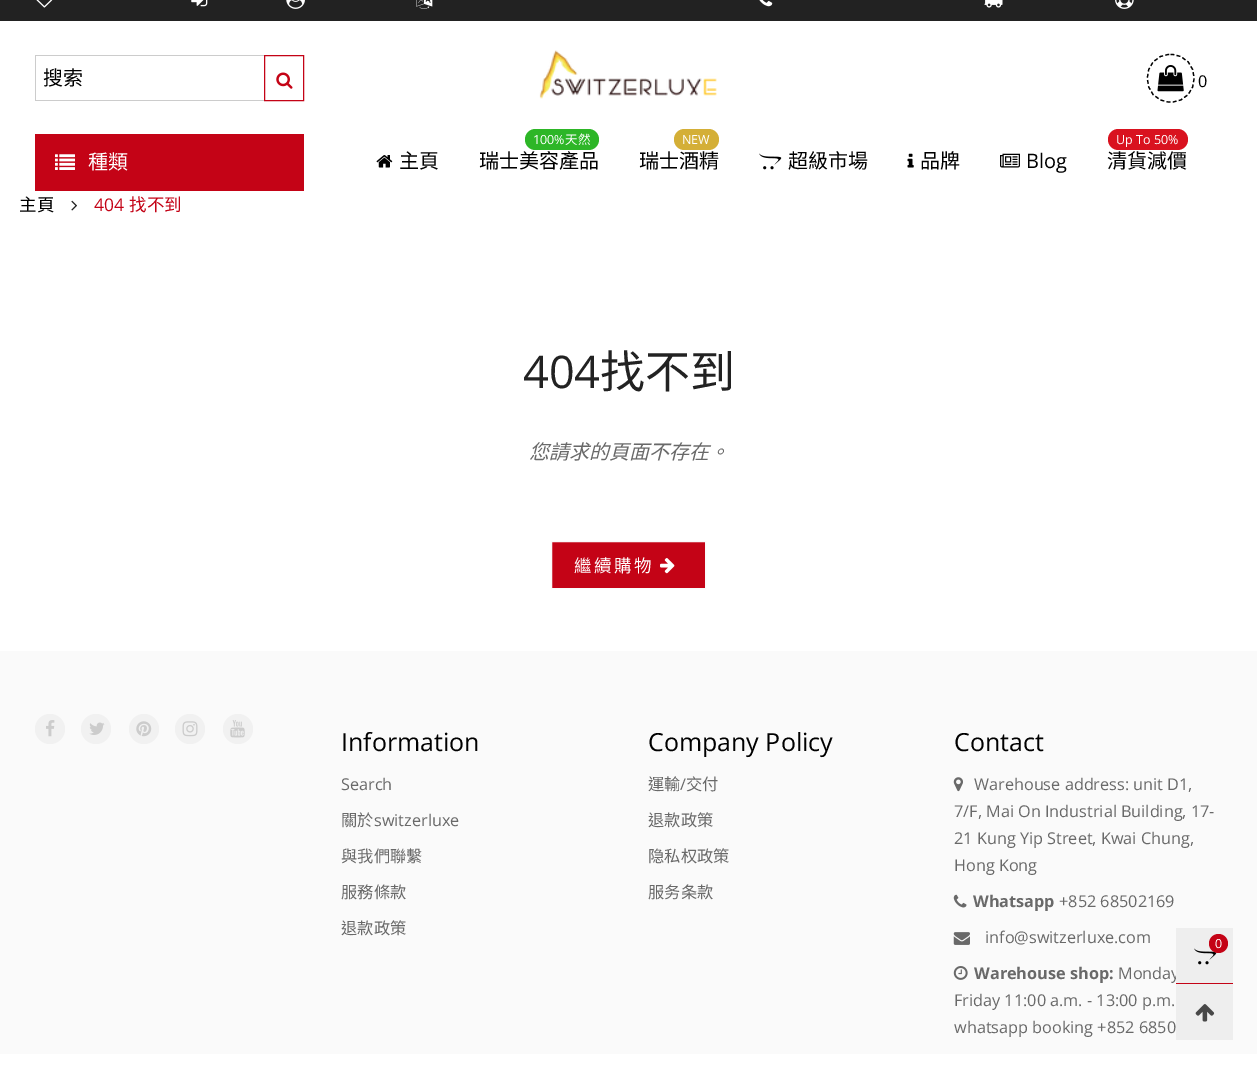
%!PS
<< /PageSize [1257 1088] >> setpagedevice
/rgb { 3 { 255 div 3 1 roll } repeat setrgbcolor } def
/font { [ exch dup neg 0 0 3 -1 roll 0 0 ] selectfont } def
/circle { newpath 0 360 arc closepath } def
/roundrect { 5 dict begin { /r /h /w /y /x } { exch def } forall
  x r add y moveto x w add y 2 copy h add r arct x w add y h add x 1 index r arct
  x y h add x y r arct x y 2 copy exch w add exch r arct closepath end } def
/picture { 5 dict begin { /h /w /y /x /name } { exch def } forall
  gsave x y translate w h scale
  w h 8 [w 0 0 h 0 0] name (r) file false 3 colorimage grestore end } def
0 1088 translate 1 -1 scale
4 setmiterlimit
255 255 255 rgb
0 0 1257 1088 rectfill
34 34 34 rgb
0 0 1257 21 rectfill
(img/1.rgb) 36 0 17 8 picture
(img/2.rgb) 191 0 17 7 picture
(img/3.rgb) 286 0 19 9 picture
(img/4.rgb) 416 0 17 9 picture
(img/5.rgb) 759 0 14 7 picture
(img/6.rgb) 984 0 19 8 picture
(img/7.rgb) 1115 0 19 9 picture
[
  [35 55 229 1 204 204 204]
  [35 100 229 1 204 204 204]
  [35 55 1 46 204 204 204]
] { aload pop rgb rectfill } forall
196 3 22 rgb
264.5 55.5 39 45 rectstroke
(img/8.rgb) 276 72 17 17 picture
(img/9.rgb) 539 50 178 49 picture
0 0 0 rgb
1.2 setlinewidth
[3.75 2.5] 0 setdash
1170.5 54.5 moveto 1202 54.5 1202 102 1170.5 102 curveto 1139.5 102 1139.5 54.5 1170.5 54.5 curveto closepath stroke
(img/10.rgb) 1157 65 27 27 picture
196 3 22 rgb
35 134 269 57 rectfill
(img/11.rgb) 55 154 20 16 picture
(img/12.rgb) 376 155 17 13 picture
45 182 39 rgb
525 129 74 21 10.5 roundrect fill
212 175 55 rgb
674 129 45 21 10.5 roundrect fill
(img/13.rgb) 759 153 23 17 picture
(img/14.rgb) 907 153 7 15 picture
(img/15.rgb) 1000 153 20 15 picture
217 18 31 rgb
1108 129 80 21 10.5 roundrect fill
(img/16.rgb) 71 200 6 11 picture
196 3 22 rgb
551.5 541.5 moveto 705.5 541.5 lineto 705.5 588.5 lineto 551.5 588.5 lineto closepath gsave fill grestore
250 250 250 rgb
1 setlinewidth
[] 0 setdash
stroke
(img/17.rgb) 660 558 15 16 picture
0 651 1257 403 rectfill
241 241 241 rgb
50 729 15 circle fill
(img/18.rgb) 46 720 9 17 picture
96 729 15 circle fill
(img/19.rgb) 89 722 16 13 picture
144 729 15 circle fill
(img/20.rgb) 136 721 16 16 picture
190 729 15 circle fill
(img/21.rgb) 182 721 16 16 picture
238 729 15 circle fill
(img/22.rgb) 230 720 15 18 picture
(img/23.rgb) 953 777 10 15 picture
(img/24.rgb) 953 894 14 14 picture
(img/25.rgb) 953 932 17 13 picture
(img/26.rgb) 953 966 15 14 picture
/NotoSansCJKTC-Regular 20 font
0 0 0 rgb
43 85 moveto (搜索) show
/OpenSans-Regular 16.25 font
1198 87 moveto (0) show
/NotoSansCJKTC-Regular 20 font
255 255 255 rgb
88 169 moveto (種類) show
0 0 0 rgb
399 168 moveto (主頁) show
/OpenSans-Regular 12.5 font
255 255 255 rgb
533 144 moveto (100%) show
/NotoSansCJKTC-Regular 12.5 font
565 144 moveto (天然) show
/NotoSansCJKTC-Regular 20 font
0 0 0 rgb
479 168 moveto (瑞士美容產品) show
/OpenSans-Regular 12.5 font
255 255 255 rgb
682 144 moveto (NEW) show
/NotoSansCJKTC-Regular 20 font
0 0 0 rgb
[
  [(瑞士酒精) 639 168]
  [(超級市場) 788 168]
  [(品牌) 920 168]
] { aload pop moveto show } forall
/OpenSans-Regular 20 font
1026 168 moveto (Blog) show
/OpenSans-Regular 12.5 font
255 255 255 rgb
1116 144 moveto (Up To 50%) show
/NotoSansCJKTC-Regular 20 font
0 0 0 rgb
1107 168 moveto (清貨減價) show
/NotoSansCJKTC-Regular 17.5 font
19 211 moveto (主頁) show
/OpenSans-Regular 17.5 font
196 3 22 rgb
94 211 moveto (404) show
/NotoSansCJKTC-Regular 17.5 font
129 211 moveto (找不到) show
/OpenSans-Regular 45 font
34 34 34 rgb
523 388 moveto (404) show
/NotoSansCJKTC-Regular 45 font
600 388 moveto (找不到) show
/NotoSansCJKTC-Italic 20 font
105 105 105 rgb
529 459 moveto (您請求的頁面不存在。) show
/NotoSansCJKTC-Regular 17.5 font
255 255 255 rgb
574 572 moveto 2.5 0 (繼續購物) ashow
/OpenSans-Regular 25 font
0 0 0 rgb
341 751 moveto (Information) show
/OpenSans-Regular 16.25 font
105 105 105 rgb
341 790 moveto (Search) show
/NotoSansCJKTC-Regular 16.25 font
341 826 moveto (關於) show
/OpenSans-Regular 16.25 font
374 826 moveto (switzerluxe) show
/NotoSansCJKTC-Regular 16.25 font
[
  [(與我們聯繫) 341 862]
  [(服務條款) 341 898]
  [(退款政策) 341 934]
] { aload pop moveto show } forall
/OpenSans-Regular 25 font
0 0 0 rgb
648 751 moveto (Company Policy) show
/NotoSansCJKTC-Regular 16.25 font
105 105 105 rgb
648 790 moveto (運輸) show
/OpenSans-Regular 16.25 font
680 790 moveto (/) show
/NotoSansCJKTC-Regular 16.25 font
[
  [(交付) 686 790]
  [(退款政策) 648 826]
  [(隐私权政策) 648 862]
  [(服务条款) 648 898]
] { aload pop moveto show } forall
/OpenSans-Regular 25 font
0 0 0 rgb
954 751 moveto (Contact) show
/OpenSans-Regular 16.25 font
105 105 105 rgb
[
  [(Warehouse address: unit D1,) 974 790]
  [(7/F, Mai On Industrial Building, 17-) 954 817]
  [(21 Kung Yip Street, Kwai Chung,) 954 844]
  [(Hong Kong) 954 871]
] { aload pop moveto show } forall
/OpenSans-Bold 16.25 font
973 907 moveto (Whatsapp) show
/OpenSans-Regular 16.25 font
1059 907 moveto (+852 68502169) show
985 943 moveto (info@switzerluxe.com) show
/OpenSans-Bold 16.25 font
974 979 moveto (Warehouse shop:) show
/OpenSans-Regular 16.25 font
[
  [(Monday) 1118 979]
  [(Friday 11:00 a.m. - 13:00 p.m.) 954 1006]
  [(whatsapp booking +852 6850) 954 1033]
] { aload pop moveto show } forall
238 238 238 rgb
1176 928 57 112 rectfill
196 3 22 rgb
1176 983 57 1 rectfill
(img/27.rgb) 1194 948 23 17 picture
1218.5 943.5 9.5 circle fill
/OpenSans-Regular 12.5 font
255 255 255 rgb
1215 948 moveto (0) show
(img/28.rgb) 1195 1004 20 18 picture
showpage
